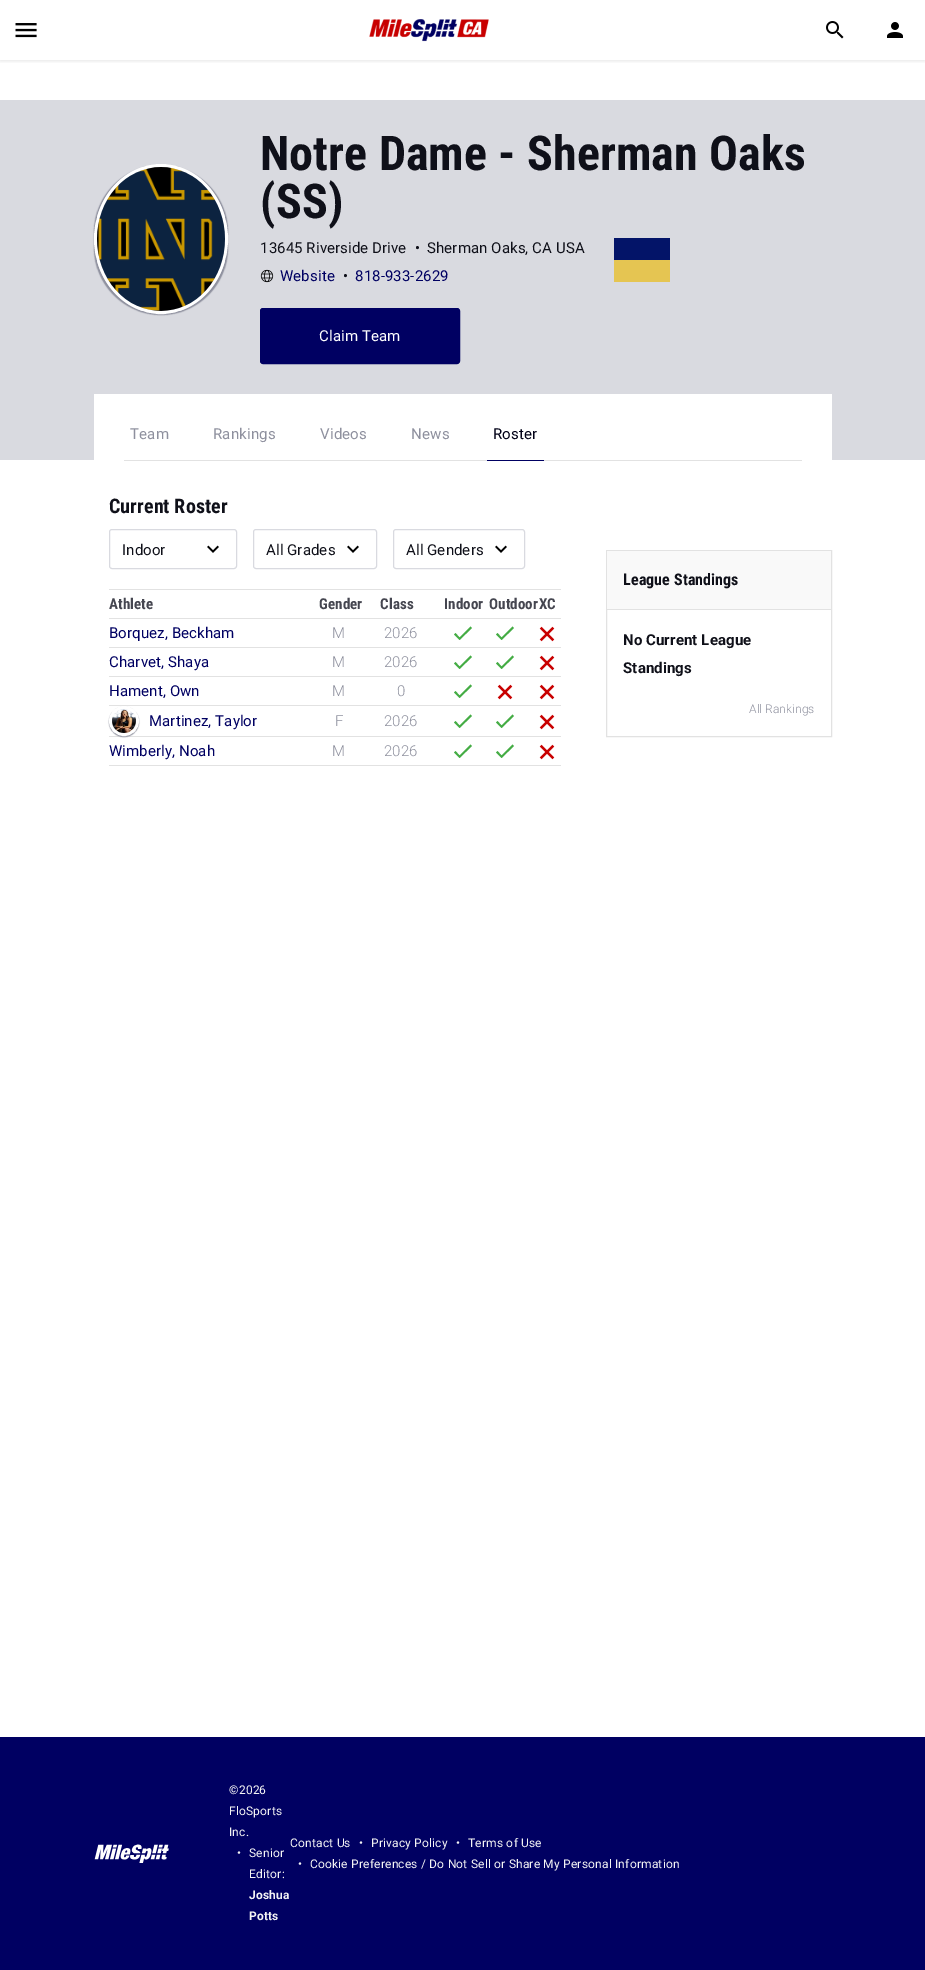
%!PS
<< /PageSize [925 1970] /PageUsesTransparency true >> setpagedevice
/rgb { 3 { 255 div 3 1 roll } repeat setrgbcolor } def
/font { [ exch dup neg 0 0 3 -1 roll 0 0 ] selectfont } def
/alpha { dup .setfillconstantalpha .setstrokeconstantalpha } def
/circle { newpath 0 360 arc closepath } def
/roundrect { 5 dict begin { /r /h /w /y /x } { exch def } forall
  x r add y moveto x w add y 2 copy h add r arct x w add y h add x 1 index r arct
  x y h add x y r arct x y 2 copy exch w add exch r arct closepath end } def
/shadow { 12 dict begin { /a /b /q /h /w /y /x } { exch def } forall gsave /was 0 def
  9 -2 -9 { dup b mul 4 div /e exch def 1 sub .425 mul 2.718 exch exp 1 add a .99 .min exch div /now exch def
    1 1 now sub 1 was sub div sub alpha /was now def
    w h .min e 2 mul add 0 gt { x e sub y e sub w e 2 mul add h e 2 mul add
      q e add b .6 mul add w h .min 2 div e add .min 0 .max roundrect fill } if } for grestore end } def
/picture { 5 dict begin { /h /w /y /x /name } { exch def } forall
  gsave x y translate w h scale
  w h 8 [w 0 0 h 0 0] name (r) file false 3 colorimage grestore end } def
0 .pushpdf14devicefilter
0 1970 translate 1 -1 scale
4 setmiterlimit
255 255 255 rgb
0 0 925 1970 rectfill
gsave
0 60 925 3 rectclip
0 0 0 rgb
0 1 925 60 0 2 0.1 shadow
grestore
(img/1.rgb) 15 23 22 15 picture
(img/2.rgb) 369 19 120 23 picture
(img/3.rgb) 826 21 18 18 picture
(img/4.rgb) 887 22 16 16 picture
217 218 224 rgb
0 100 925 360 rectfill
142 144 158 rgb
94 165 134 150 67 0.5 1 shadow
255 255 255 rgb
3 setlinewidth
161 165.5 moveto 197 165.5 226.5 198.5 226.5 239 curveto 226.5 279.5 197 312.5 161 312.5 curveto 125 312.5 95.5 279.5 95.5 239 curveto 95.5 198.5 125 165.5 161 165.5 curveto closepath stroke
(img/5.rgb) 97 167 128 144 picture
(img/6.rgb) 260 269 14 14 picture
3 20 104 rgb
614 238 56 22 rectfill
229 197 82 rgb
614 260 56 22 rectfill
0 0 98 rgb
260.5 308.5 199 55 2.5 roundrect gsave fill grestore
1 setlinewidth
stroke
[
  [94 394 738 66 255 255 255]
  [124 460 678 1 226 226 226]
  [487 460 57 1 0 0 98]
] { aload pop rgb rectfill } forall
217 218 224 rgb
109.5 529.5 127 39 2.5 roundrect stroke
(img/7.rgb) 207 545 12 8 picture
253.5 529.5 123 39 2.5 roundrect stroke
(img/7.rgb) 347 545 12 8 picture
393.5 529.5 131 39 2.5 roundrect stroke
(img/7.rgb) 495 545 12 8 picture
[
  [109 589 452 1 226 226 226]
  [109 618 452 1 226 226 226]
  [109 647 452 1 226 226 226]
] { aload pop rgb rectfill } forall
68 172 68 rgb
459.5 637.5 moveto 455.5 633 lineto 454 634.5 lineto 459.5 640 lineto 472 628 lineto 470.5 626.5 lineto closepath 501.5 637.5 moveto 497.5 633 lineto 496 634.5 lineto 501.5 640 lineto 514 628 lineto 512.5 626.5 lineto closepath fill
(img/8.rgb) 539 626 16 16 picture
226 226 226 rgb
109 676 452 1 rectfill
68 172 68 rgb
459.5 666.5 moveto 455.5 662 lineto 454 663.5 lineto 459.5 669 lineto 472 657 lineto 470.5 655.5 lineto closepath 501.5 666.5 moveto 497.5 662 lineto 496 663.5 lineto 501.5 669 lineto 514 657 lineto 512.5 655.5 lineto closepath fill
(img/8.rgb) 539 655 16 16 picture
226 226 226 rgb
109 705 452 1 rectfill
68 172 68 rgb
459.5 695.5 moveto 455.5 691 lineto 454 692.5 lineto 459.5 698 lineto 472 686 lineto 470.5 684.5 lineto closepath fill
(img/8.rgb) 497 684 16 16 picture
(img/8.rgb) 539 684 16 16 picture
226 226 226 rgb
109 736 452 1 rectfill
142 144 158 rgb
109 707 30 30 15 0.5 1 shadow
255 255 255 rgb
3 setlinewidth
124 721 13.5 circle stroke
(img/9.rgb) 112 709 24 24 picture
68 172 68 rgb
459.5 725.5 moveto 455.5 721 lineto 454 722.5 lineto 459.5 728 lineto 472 716 lineto 470.5 714.5 lineto closepath 501.5 725.5 moveto 497.5 721 lineto 496 722.5 lineto 501.5 728 lineto 514 716 lineto 512.5 714.5 lineto closepath fill
(img/8.rgb) 539 714 16 16 picture
226 226 226 rgb
109 765 452 1 rectfill
68 172 68 rgb
459.5 755.5 moveto 455.5 751 lineto 454 752.5 lineto 459.5 758 lineto 472 746 lineto 470.5 744.5 lineto closepath 501.5 755.5 moveto 497.5 751 lineto 496 752.5 lineto 501.5 758 lineto 514 746 lineto 512.5 744.5 lineto closepath fill
(img/8.rgb) 539 744 16 16 picture
226 226 226 rgb
1 setlinewidth
606.5 550.5 225 186 rectstroke
[
  [607 551 224 58 249 249 249]
  [607 609 224 1 226 226 226]
  [0 1737 925 233 0 0 98]
] { aload pop rgb rectfill } forall
(img/10.rgb) 94 1844 75 19 picture
/RobotoCondensed-Bold 48 font
15 16 25 rgb
260 170 moveto 0.1 0 (Notre Dame - Sherman Oaks) ashow
260 218 moveto 0.1 0 (\(SS\)) ashow
/Roboto-Regular 15 font
260 253 moveto 0.1 0 (13645 Riverside Drive) ashow
415 253 moveto 0.1 0 (•) ashow
427 253 moveto 0.1 0 (Sherman Oaks, CA USA) ashow
0 0 98 rgb
280 281 moveto 0.1 0 (Website) ashow
15 16 25 rgb
343 281 moveto 0.1 0 (•) ashow
0 0 98 rgb
355 281 moveto 0.1 0 (818-933-2629) ashow
255 255 255 rgb
319 341 moveto 0.1 0 (Claim Team) ashow
142 144 158 rgb
130 439 moveto 0.2 0 (Team) ashow
213 439 moveto 0.2 0 (Rankings) ashow
320 439 moveto 0.2 0 (Videos) ashow
411 439 moveto 0.2 0 (News) ashow
0 0 22 rgb
493 439 moveto 0.2 0 (Roster) ashow
/RobotoCondensed-Bold 20 font
15 16 25 rgb
109 513 moveto 0.1 0 (Current Roster) ashow
/Roboto-Regular 15 font
122 555 moveto 0.1 0 (Indoor) ashow
266 555 moveto 0.1 0 (All Grades) ashow
406 555 moveto 0.1 0 (All Genders) ashow
/RobotoCondensed-Bold 15 font
69 70 80 rgb
109 609 moveto 0.1 0 (Athlete) ashow
319 609 moveto 0.1 0 (Gender) ashow
380 609 moveto 0.1 0 (Class) ashow
444 609 moveto 0.1 0 (Indoor) ashow
489 609 moveto 0.1 0 (Outdoor) ashow
539 609 moveto 0.1 0 (XC) ashow
/Roboto-Regular 15 font
0 0 98 rgb
109 638 moveto 0.1 0 (Borquez, Beckham) ashow
/Roboto-Light 15 font
142 144 158 rgb
332 638 moveto 0.1 0 (M) ashow
384 638 moveto 0.1 0 (2026) ashow
/Roboto-Regular 15 font
0 0 98 rgb
109 667 moveto 0.1 0 (Charvet, Shaya) ashow
/Roboto-Light 15 font
142 144 158 rgb
332 667 moveto 0.1 0 (M) ashow
384 667 moveto 0.1 0 (2026) ashow
/Roboto-Regular 15 font
0 0 98 rgb
109 696 moveto 0.1 0 (Hament, Own) ashow
/Roboto-Light 15 font
142 144 158 rgb
332 696 moveto 0.1 0 (M) ashow
397 696 moveto 0.1 0 (0) ashow
/Roboto-Regular 15 font
0 0 98 rgb
149 726 moveto 0.1 0 (Martinez, Taylor) ashow
/Roboto-Light 15 font
142 144 158 rgb
335 726 moveto 0.1 0 (F) ashow
384 726 moveto 0.1 0 (2026) ashow
/Roboto-Regular 15 font
0 0 98 rgb
109 756 moveto 0.1 0 (Wimberly, Noah) ashow
/Roboto-Light 15 font
142 144 158 rgb
332 756 moveto 0.1 0 (M) ashow
384 756 moveto 0.1 0 (2026) ashow
/RobotoCondensed-Bold 16 font
15 16 25 rgb
623 585 moveto 0.1 0 (League Standings) ashow
/Roboto-Bold 15 font
623 645 moveto 0.1 0 (No Current League) ashow
623 673 moveto 0.1 0 (Standings) ashow
/Roboto-Light 12 font
142 144 158 rgb
749 713 moveto 0.1 0 (All Rankings) ashow
/Roboto-Regular 12 font
244 244 244 rgb
229 1794 moveto 0.2 0 (©2026) ashow
229 1815 moveto 0.2 0 (FloSports) ashow
229 1836 moveto 0.2 0 (Inc.) ashow
237 1857 moveto 0.2 0 (•) ashow
249 1857 moveto 0.2 0 (Senior) ashow
249 1878 moveto 0.2 0 (Editor:) ashow
/Roboto-Bold 12 font
249 1899 moveto 0.2 0 (Joshua) ashow
249 1920 moveto 0.2 0 (Potts) ashow
/Roboto-Regular 12 font
290 1847 moveto 0.2 0 (Contact Us) ashow
359 1847 moveto 0.2 0 (•) ashow
371 1847 moveto 0.2 0 (Privacy Policy) ashow
456 1847 moveto 0.2 0 (•) ashow
468 1847 moveto 0.2 0 (Terms of Use) ashow
298 1868 moveto 0.2 0 (•) ashow
310 1868 moveto 0.2 0 (Cookie Preferences / Do Not Sell or Share My Personal Information) ashow
.poppdf14devicefilter showpage
